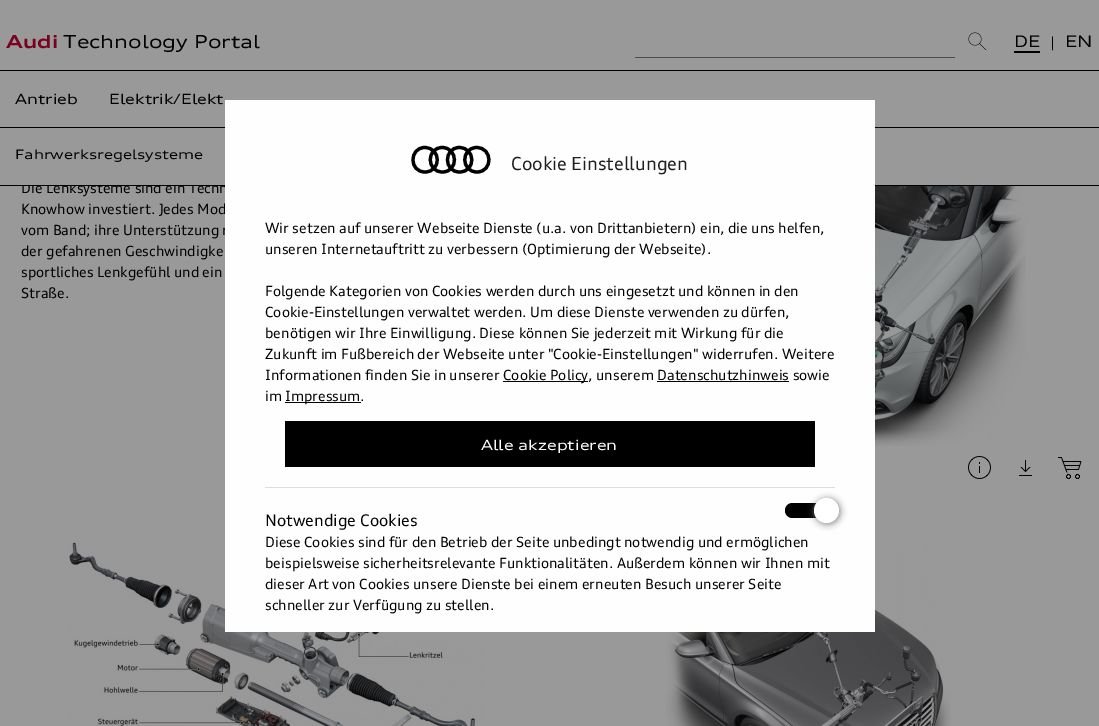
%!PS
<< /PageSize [1099 726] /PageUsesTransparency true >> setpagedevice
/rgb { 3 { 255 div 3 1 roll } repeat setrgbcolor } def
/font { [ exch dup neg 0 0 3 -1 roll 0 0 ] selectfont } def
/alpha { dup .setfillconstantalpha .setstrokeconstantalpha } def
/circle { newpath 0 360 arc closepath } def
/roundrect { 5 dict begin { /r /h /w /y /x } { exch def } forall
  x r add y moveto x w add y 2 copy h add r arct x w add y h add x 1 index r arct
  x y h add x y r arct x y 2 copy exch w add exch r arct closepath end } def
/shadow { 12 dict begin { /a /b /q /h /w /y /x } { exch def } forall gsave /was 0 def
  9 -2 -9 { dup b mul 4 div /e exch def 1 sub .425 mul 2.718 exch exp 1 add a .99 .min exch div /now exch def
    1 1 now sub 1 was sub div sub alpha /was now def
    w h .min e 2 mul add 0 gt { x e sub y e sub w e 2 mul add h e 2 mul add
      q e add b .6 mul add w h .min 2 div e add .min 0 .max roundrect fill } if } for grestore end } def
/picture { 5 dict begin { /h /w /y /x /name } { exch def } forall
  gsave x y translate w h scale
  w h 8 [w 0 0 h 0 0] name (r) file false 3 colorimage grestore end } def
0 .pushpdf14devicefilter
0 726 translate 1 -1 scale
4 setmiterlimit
153 153 153 rgb
0 0 1099 726 rectfill
(img/1.rgb) 968 32 19 18 picture
[
  [635 57 320 1 77 77 77]
  [1014 51 26 2 0 0 0]
  [0 70 1099 1 0 0 0]
  [0 185 1099 1 0 0 0]
  [0 127 1099 1 0 0 0]
] { aload pop rgb rectfill } forall
(img/2.rgb) 875 186 151 260 picture
(img/3.rgb) 968 456 23 23 picture
(img/4.rgb) 1019 460 13 16 picture
(img/5.rgb) 1058 457 24 22 picture
(img/6.rgb) 69 542 416 184 picture
(img/7.rgb) 666 537 285 189 picture
/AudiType-Bold 18 font
122 0 31 rgb
6 48 moveto (Audi) show
/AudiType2-Regular 18 font
0 0 0 rgb
63 48 moveto (Technology Portal) show
/AudiType2-Regular 16 font
1014 47 moveto (DE) show
/AudiType-Regular 14 font
1050 47 moveto (|) show
/AudiType2-Regular 16 font
1065 47 moveto (EN) show
/AudiType2-Regular 14 font
15 104 moveto (Antrieb) show
109 104 moveto (Elektrik/Elekt) show
/AudiType2-Regular 13 font
15 159 moveto (Fahrwerksregelsysteme) show
/AudiType-Regular 14 font
21 193 moveto (Die Lenksysteme sind ein Techn) show
153 153 153 rgb
22 182 192 3 rectfill
0 0 0 rgb
[
  [(Knowhow investiert. Jedes Mod) 21 214]
  [(vom Band; ihre Unterstützung r) 21 235]
  [(der gefahrenen Geschwindigke) 21 256]
  [(sportliches Lenkgefühl und ein) 21 277]
  [(Straße.) 21 298]
] { aload pop moveto show } forall
254 254 254 rgb
225 100 650 532 rectfill
0 0 0 rgb
3.2 setlinewidth
424.5 147.5 moveto 409 148 409 172 425 172 curveto 441.5 172 441.5 147.5 424.5 147.5 curveto closepath 442 147.5 moveto 426 148 426.5 172 442.5 172 curveto 458.5 172 458.5 147.5 442 147.5 curveto closepath 459 147.5 moveto 443.5 148 443.5 172 459.5 172 curveto 476 172 476 147.5 459 147.5 curveto closepath 476.5 147.5 moveto 460.5 148 461 172 477 172 curveto 493 172 493 147.5 476.5 147.5 curveto closepath stroke
/AudiType-Regular 18 font
31 31 31 rgb
511 170 moveto (Cookie Einstellungen) show
/AudiType-Regular 14 font
0 0 0 rgb
[
  [(Wir setzen auf unserer Webseite Dienste \(u.a. von Drittanbietern\) ein, die uns helfen,) 265 233]
  [(unseren Internetauftritt zu verbessern \(Optimierung der Webseite\).) 265 254]
  [(Folgende Kategorien von Cookies werden durch uns eingesetzt und können in den) 265 296]
  [(Cookie-Einstellungen verwaltet werden. Um diese Dienste verwenden zu dürfen,) 265 317]
  [(benötigen wir Ihre Einwilligung. Diese können Sie jederzeit mit Wirkung für die) 265 338]
  [(Zukunft im Fußbereich der Webseite unter "Cookie-Einstellungen" widerrufen. Weitere) 265 359]
  [(Informationen finden Sie in unserer) 265 380]
] { aload pop moveto show } forall
503 381 85 1 rectfill
503 380 moveto (Cookie Policy, unserem Datenschutzhinweis sowie) show
657 381 132 1 rectfill
265 401 moveto (im) show
285 402 76 1 rectfill
285 401 moveto (Impressum.) show
285 421 530 46 rectfill
/AudiType2-Regular 14 font
255 255 255 rgb
481 450 moveto (Alle akzeptieren) show
221 221 221 rgb
265 487 570 1 rectfill
/AudiType-Regular 16 font
0 0 0 rgb
265 526 moveto (Notwendige Cookies) show
785 503 50 15 7.5 roundrect fill
128 128 128 rgb
815 499 25 25 12.5 3.5 1 shadow
255 255 255 rgb
826.5 510.5 12.5 circle fill
/AudiType-Regular 14 font
0 0 0 rgb
[
  [(Diese Cookies sind für den Betrieb der Seite unbedingt notwendig und ermöglichen) 265 547]
  [(beispielsweise sicherheitsrelevante Funktionalitäten. Außerdem können wir Ihnen mit) 265 568]
  [(dieser Art von Cookies unsere Dienste bei einem erneuten Besuch unserer Seite) 265 589]
  [(schneller zur Verfügung zu stellen.) 265 610]
] { aload pop moveto show } forall
.poppdf14devicefilter showpage
